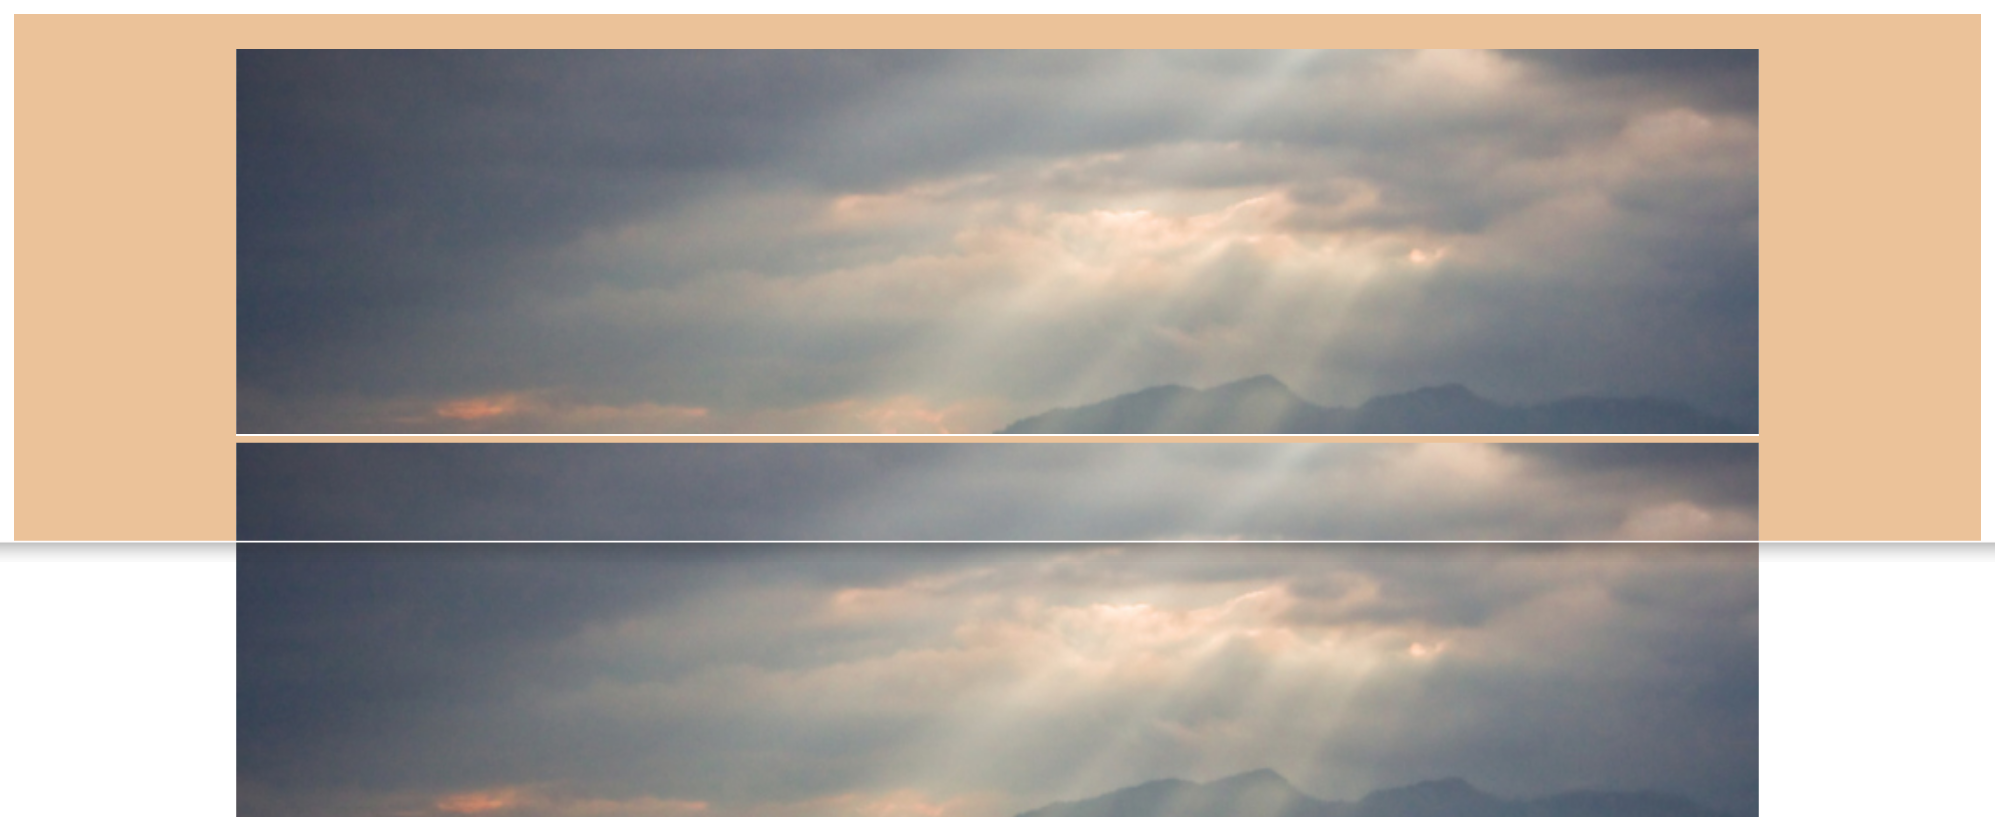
%!PS
<< /PageSize [1995 817] >> setpagedevice
/rgb { 3 { 255 div 3 1 roll } repeat setrgbcolor } def
/picture { 5 dict begin { /h /w /y /x /name } { exch def } forall
  gsave x y translate w h scale
  w h 8 [w 0 0 h 0 0] name (r) file false 3 colorimage grestore end } def
0 817 translate 1 -1 scale
4 setmiterlimit
255 255 255 rgb
0 0 1995 817 rectfill
235 194 153 rgb
14 14 1967 527 rectfill
255 255 255 rgb
236 434 1523 2 rectfill
(img/1.rgb) 236 49 1523 385 picture
(img/2.rgb) 236 442 1523 375 picture
(img/3.rgb) 0 540 1995 22 picture
showpage
